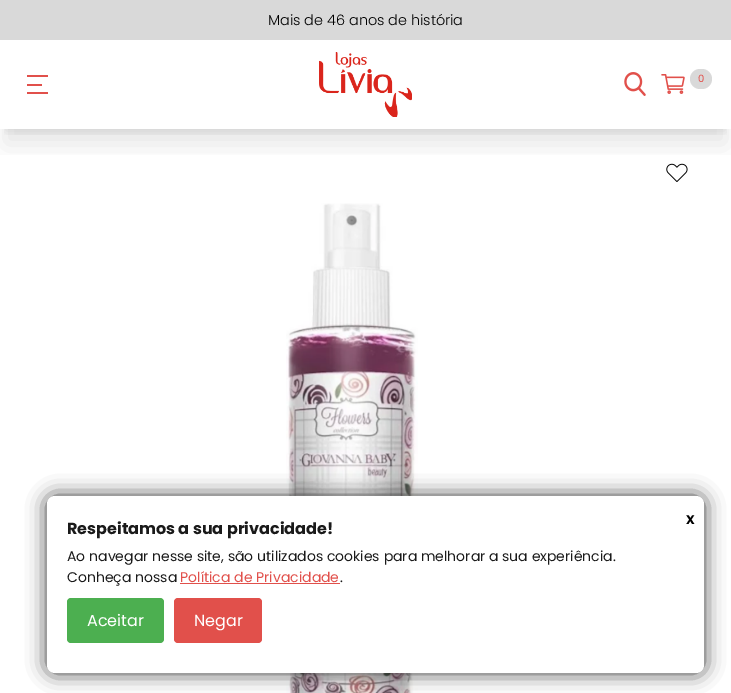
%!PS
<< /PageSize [731 693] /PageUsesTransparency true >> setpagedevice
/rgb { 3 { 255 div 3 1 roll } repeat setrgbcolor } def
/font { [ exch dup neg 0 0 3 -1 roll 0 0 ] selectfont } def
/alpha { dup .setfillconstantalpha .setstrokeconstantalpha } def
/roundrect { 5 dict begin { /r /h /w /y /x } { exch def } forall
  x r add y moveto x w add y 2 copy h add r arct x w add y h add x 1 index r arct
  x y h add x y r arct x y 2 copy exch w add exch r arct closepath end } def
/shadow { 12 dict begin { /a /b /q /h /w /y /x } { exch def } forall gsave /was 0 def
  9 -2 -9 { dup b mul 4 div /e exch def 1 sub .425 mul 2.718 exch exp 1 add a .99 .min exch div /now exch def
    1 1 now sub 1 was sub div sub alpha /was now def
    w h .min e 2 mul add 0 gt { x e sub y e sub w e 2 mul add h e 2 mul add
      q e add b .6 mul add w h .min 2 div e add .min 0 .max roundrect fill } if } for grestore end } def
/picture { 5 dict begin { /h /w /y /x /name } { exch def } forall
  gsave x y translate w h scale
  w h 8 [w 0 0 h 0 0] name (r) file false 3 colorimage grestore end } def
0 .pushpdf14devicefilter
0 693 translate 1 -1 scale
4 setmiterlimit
255 255 255 rgb
0 0 731 693 rectfill
gsave
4 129 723 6 rectclip
0 0 0 rgb
6 14 719 117 0 5 0.1 shadow
grestore
gsave
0 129 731 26 rectclip
0 0 0 rgb
5 25 721 119 0 12.5 0.1 shadow
grestore
[
  [0 0 731 40 217 217 217]
  [27 75 21 2 225 80 75]
  [27 84 15 2 225 80 75]
  [27 92 21 2 225 80 75]
] { aload pop rgb rectfill } forall
(img/1.rgb) 319 52 93 65 picture
(img/2.rgb) 624 72 22 24 picture
(img/3.rgb) 661 74 24 20 picture
217 217 217 rgb
690 69 22 20 10 roundrect fill
(img/4.rgb) 666 163 22 19 picture
(img/5.rgb) 286 203 132 490 picture
56 56 56 rgb
47 496 657 177 8 10 1 shadow
255 255 255 rgb
47 496 657 177 8 roundrect fill
225 80 75 rgb
180 583 160 1 rectfill
76 175 80 rgb
67 598 97 45 4 roundrect fill
225 80 75 rgb
174 598 88 45 4 roundrect fill
/Poppins-Light 14.4 font
0 0 0 rgb
268 25 moveto (Mais de 46 anos de história) show
/Poppins-Regular 10 font
225 80 75 rgb
698 82 moveto (0) show
/Poppins-SemiBold 16 font
0 0 0 rgb
686 524 moveto (x) show
/Poppins-Bold 16 font
26 26 26 rgb
67 534 moveto (Respeitamos a sua privacidade!) show
/Poppins-Regular 14 font
67 561 moveto (Ao navegar nesse site, são utilizados cookies para melhorar a sua experiência.) show
67 582 moveto (Conheça nossa) show
225 80 75 rgb
180 582 moveto (Política de Privacidade) show
26 26 26 rgb
340 582 moveto (.) show
/Poppins-Regular 16 font
255 255 255 rgb
87 626 moveto (Aceitar) show
194 626 moveto (Negar) show
.poppdf14devicefilter showpage
